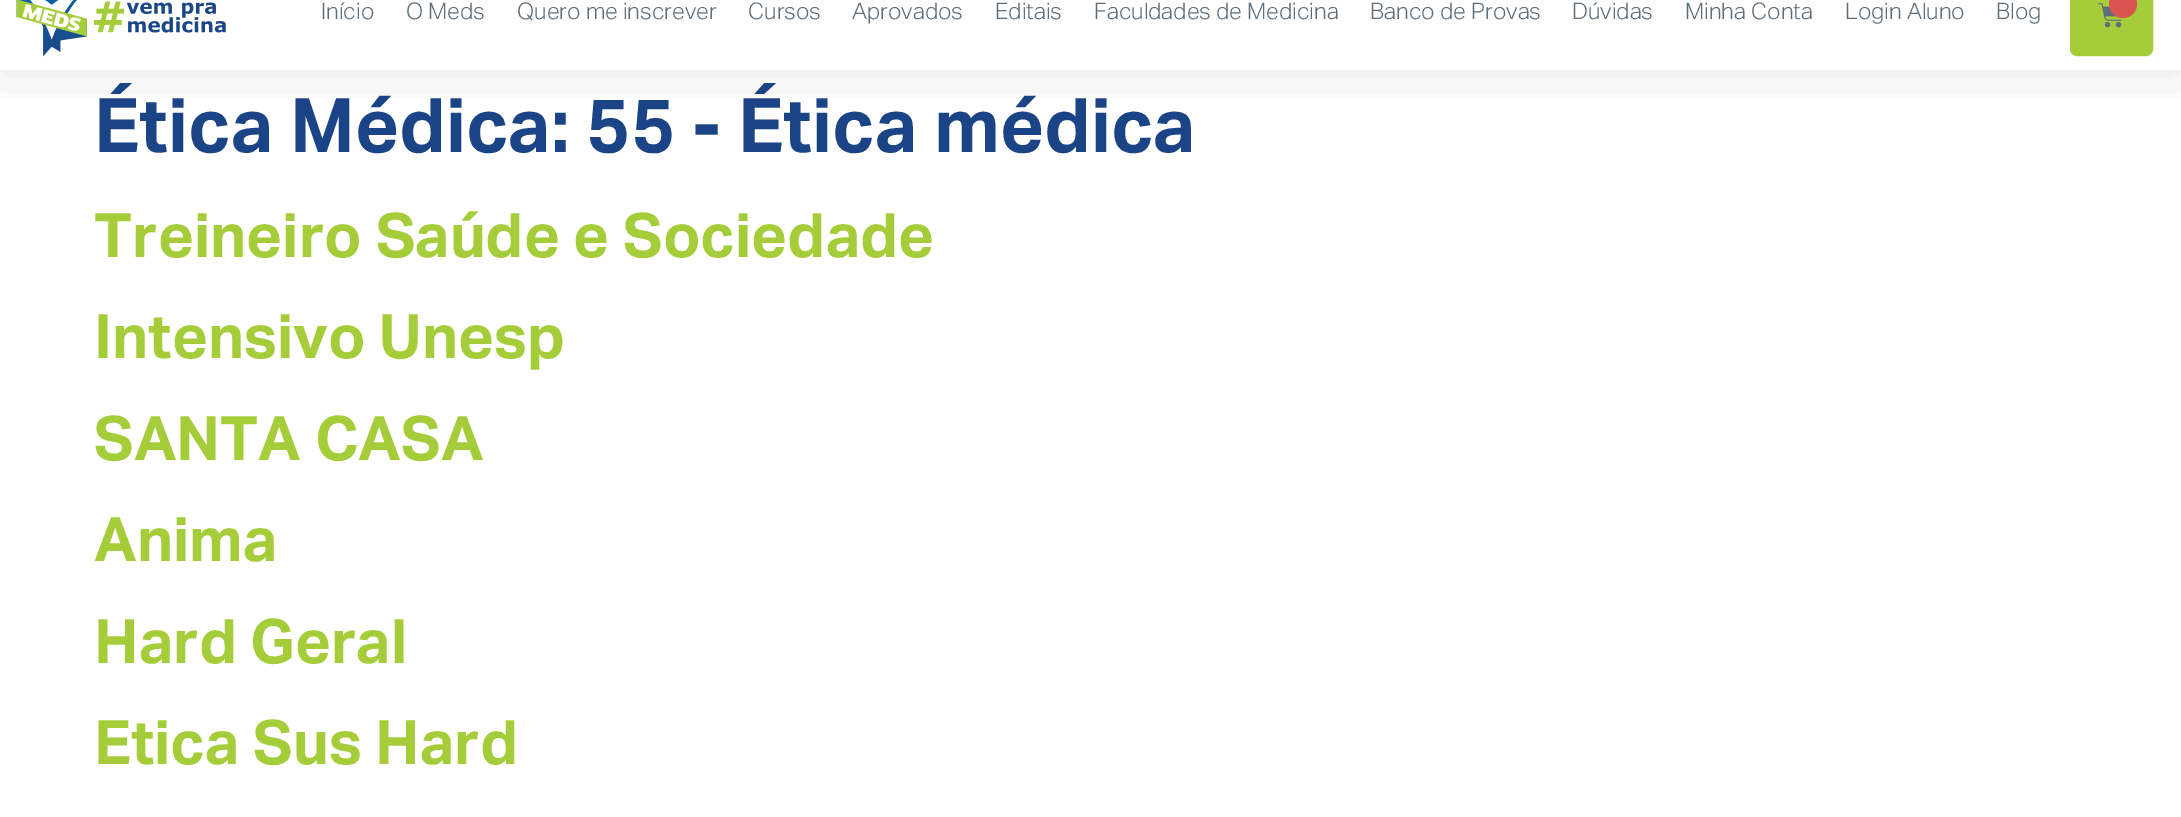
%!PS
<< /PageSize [2181 817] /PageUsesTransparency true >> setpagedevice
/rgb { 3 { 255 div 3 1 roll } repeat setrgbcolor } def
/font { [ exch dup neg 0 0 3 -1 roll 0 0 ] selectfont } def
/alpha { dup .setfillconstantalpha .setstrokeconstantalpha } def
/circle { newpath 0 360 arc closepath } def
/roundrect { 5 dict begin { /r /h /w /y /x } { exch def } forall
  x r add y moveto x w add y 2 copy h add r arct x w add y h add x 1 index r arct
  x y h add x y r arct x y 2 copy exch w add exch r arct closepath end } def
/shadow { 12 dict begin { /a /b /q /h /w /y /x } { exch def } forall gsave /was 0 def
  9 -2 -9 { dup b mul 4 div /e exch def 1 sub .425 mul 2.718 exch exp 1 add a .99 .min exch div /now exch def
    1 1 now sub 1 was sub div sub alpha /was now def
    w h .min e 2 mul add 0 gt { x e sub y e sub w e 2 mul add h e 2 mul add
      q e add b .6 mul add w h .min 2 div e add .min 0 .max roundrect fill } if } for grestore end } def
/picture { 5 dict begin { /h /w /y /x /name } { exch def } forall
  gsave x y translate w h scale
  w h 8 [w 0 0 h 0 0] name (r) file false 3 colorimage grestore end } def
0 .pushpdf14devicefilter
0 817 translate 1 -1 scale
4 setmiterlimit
255 255 255 rgb
0 0 2181 817 rectfill
gsave
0 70 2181 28 rectclip
0 0 0 rgb
0 -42 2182 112 0 33 0.1 shadow
grestore
(img/1.rgb) 16 0 210 57 picture
165 205 57 rgb
2071 -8 81 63 6 roundrect gsave fill grestore
2 setlinewidth
stroke
(img/2.rgb) 2098 3 24 25 picture
217 83 79 rgb
2123 4 14 circle fill
/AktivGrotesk-Light 22.75 font
93 109 121 rgb
[
  [(Início) 321 19]
  [(O Meds) 406 19]
  [(Quero me inscrever) 517 19]
  [(Cursos) 748 19]
  [(Aprovados) 852 19]
  [(Editais) 995 19]
  [(Faculdades de Medicina) 1094 19]
  [(Banco de Provas) 1370 19]
  [(Dúvidas) 1572 19]
  [(Minha Conta) 1685 19]
  [(Login Aluno) 1845 19]
  [(Blog) 1996 19]
] { aload pop moveto show } forall
/AktivGrotesk-Bold 75.25 font
27 68 135 rgb
94 152 moveto (Ética Médica: 55 - Ética médica) show
/AktivGrotesk-Bold 61.25 font
165 205 57 rgb
[
  [(Treineiro Saúde e Sociedade) 94 257]
  [(Intensivo Unesp) 94 358]
  [(SANTA CASA) 94 460]
  [(Anima) 94 561]
  [(Hard Geral) 94 663]
  [(Etica Sus Hard) 94 764]
] { aload pop moveto show } forall
.poppdf14devicefilter showpage
